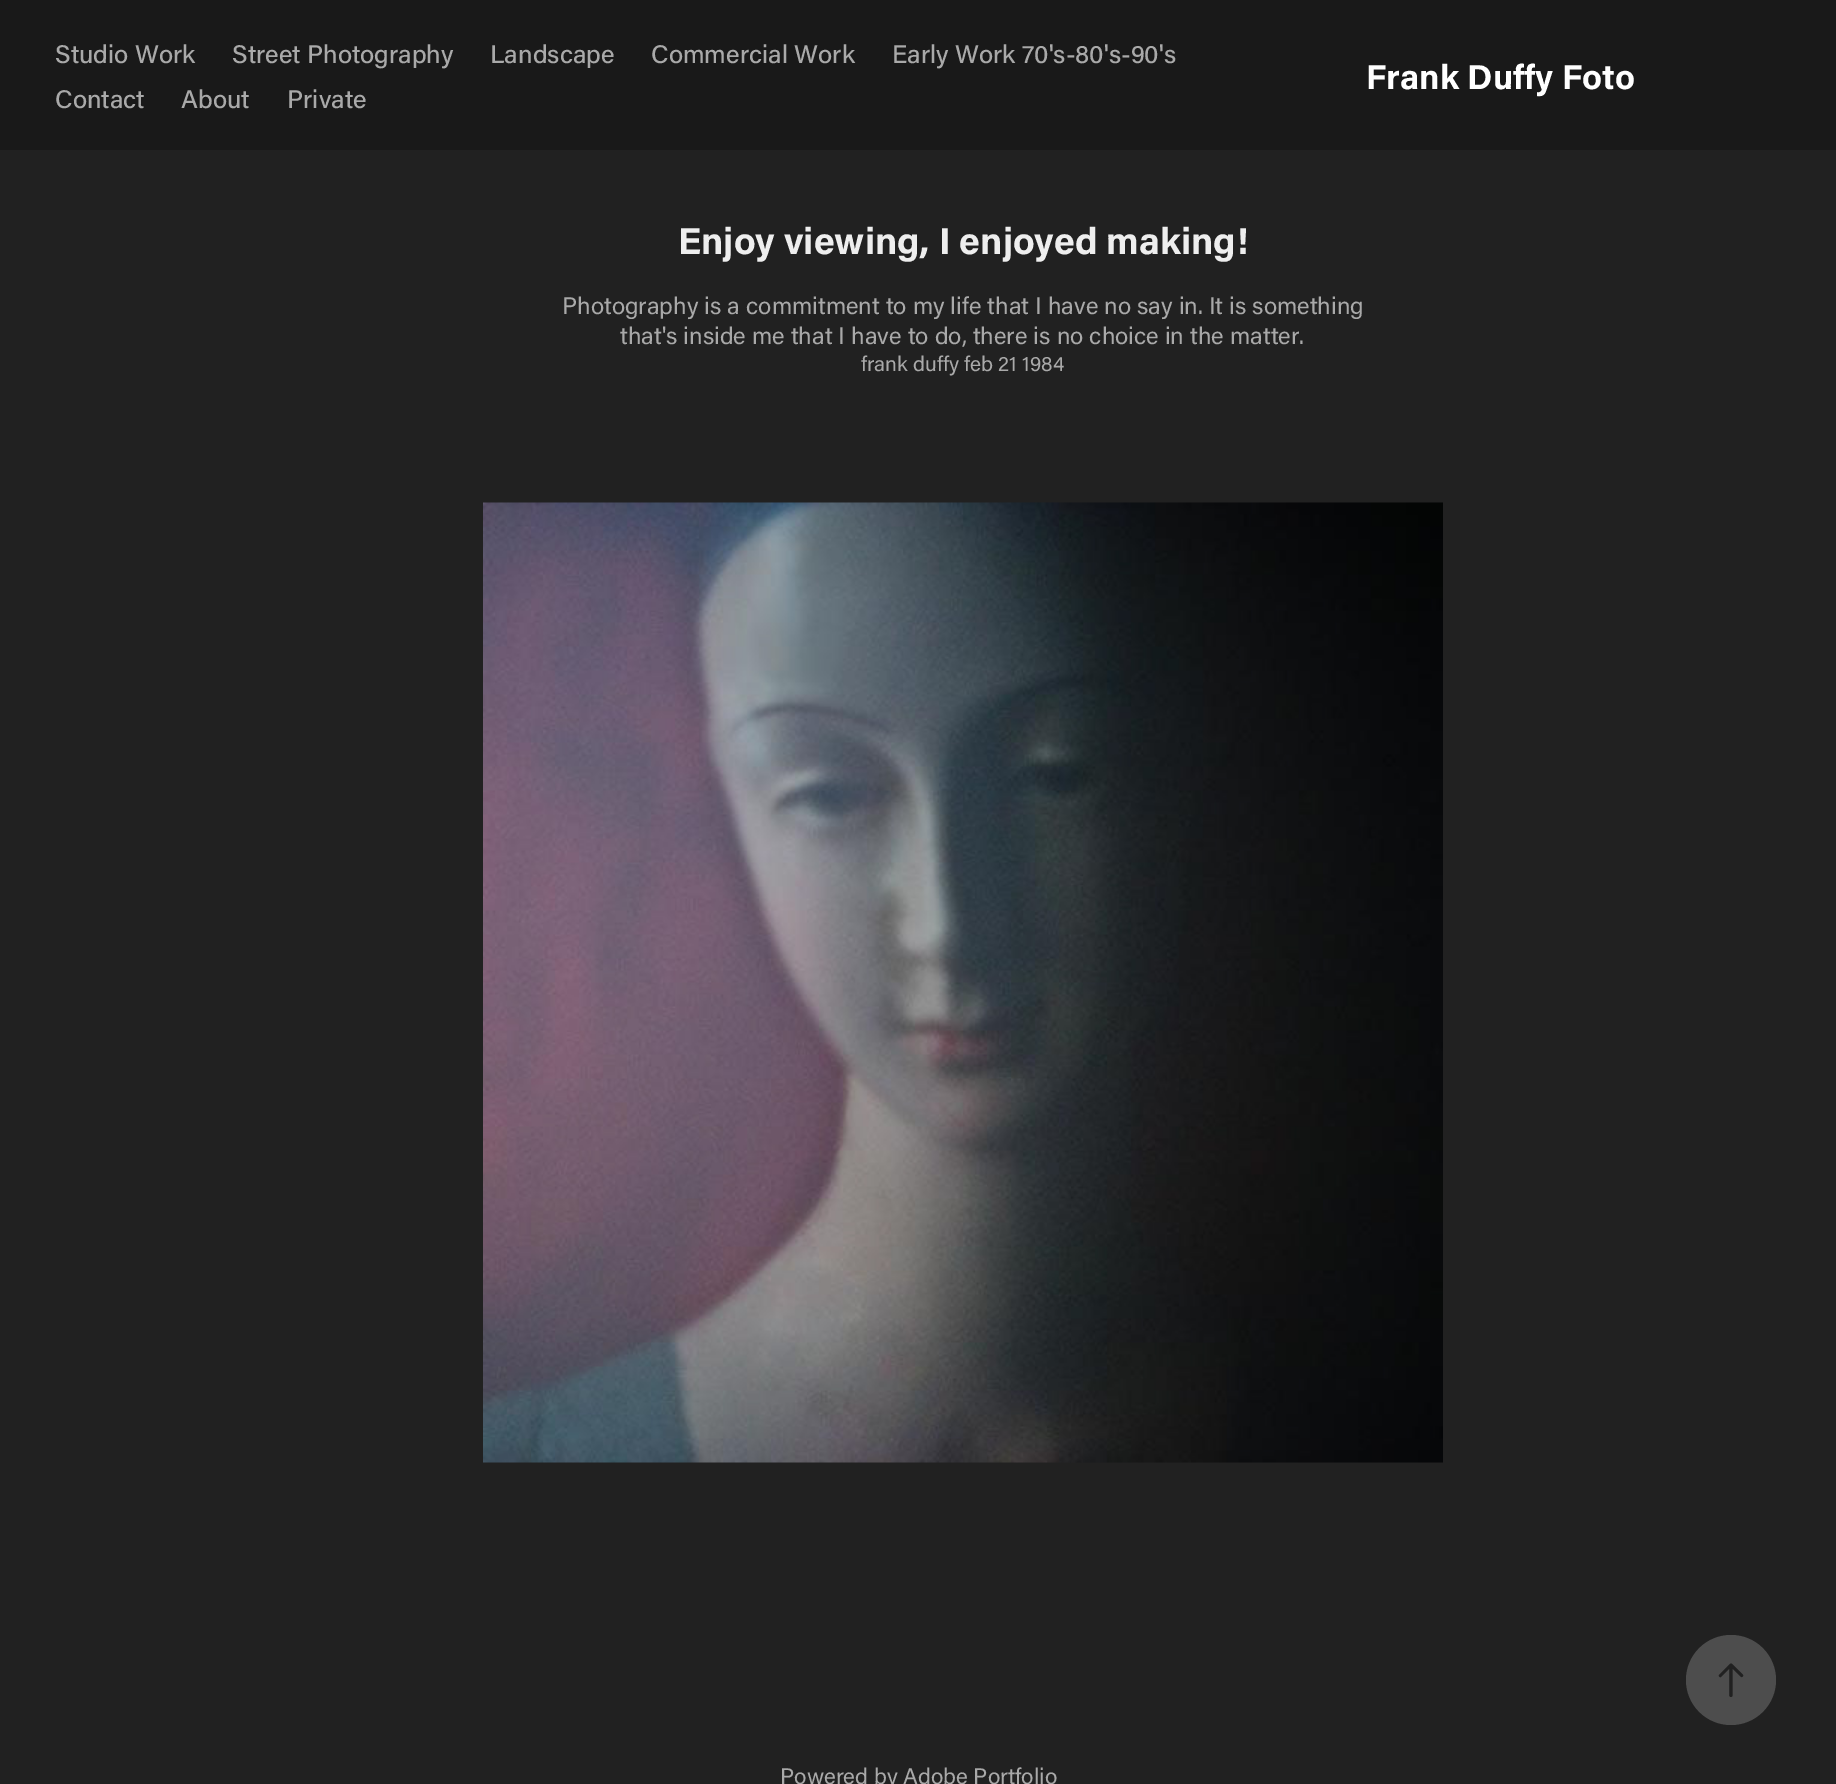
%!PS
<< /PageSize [1836 1784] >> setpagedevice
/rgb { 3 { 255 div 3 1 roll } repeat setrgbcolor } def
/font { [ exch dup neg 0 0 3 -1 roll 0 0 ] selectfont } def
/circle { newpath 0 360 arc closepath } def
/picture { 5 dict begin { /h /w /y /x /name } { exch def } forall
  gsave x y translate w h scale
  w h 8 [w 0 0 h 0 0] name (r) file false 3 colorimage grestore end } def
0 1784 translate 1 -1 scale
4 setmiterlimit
33 33 33 rgb
0 0 1836 1784 rectfill
25 25 25 rgb
0 0 1836 150 rectfill
(img/1.rgb) 483 502 960 961 picture
77 77 77 rgb
1731 1680 45 circle fill
(img/2.rgb) 1718 1663 26 34 picture
/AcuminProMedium-Medium 25.5 font
169 169 169 rgb
[
  [(Studio Work) 55 63]
  [(Street Photography) 232 63]
  [(Landscape) 490 63]
  [(Commercial Work) 651 63]
  [(Early Work 70's-80's-90's) 892 63]
  [(Contact) 55 108]
  [(About) 181 108]
  [(Private) 287 108]
] { aload pop moveto show } forall
/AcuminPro-Bold 34.5 font
255 255 255 rgb
1366 89 moveto (Frank Duffy Foto) show
/AcuminPro-Bold 37.5 font
238 238 238 rgb
678 254 moveto (Enjoy viewing, I enjoyed making!) show
/AcuminPro-Regular 24 font
169 169 169 rgb
562 314 moveto (Photography is a commitment to my life that I have no say in. It is something) show
620 344 moveto (that's inside me that I have to do, there is no choice in the matter.) show
/AcuminPro-Regular 21 font
861 371 moveto (frank duffy feb 21 1984) show
/AcuminPro-Regular 22.5 font
780 1784 moveto (Powered by Adobe Portfolio) show
showpage
